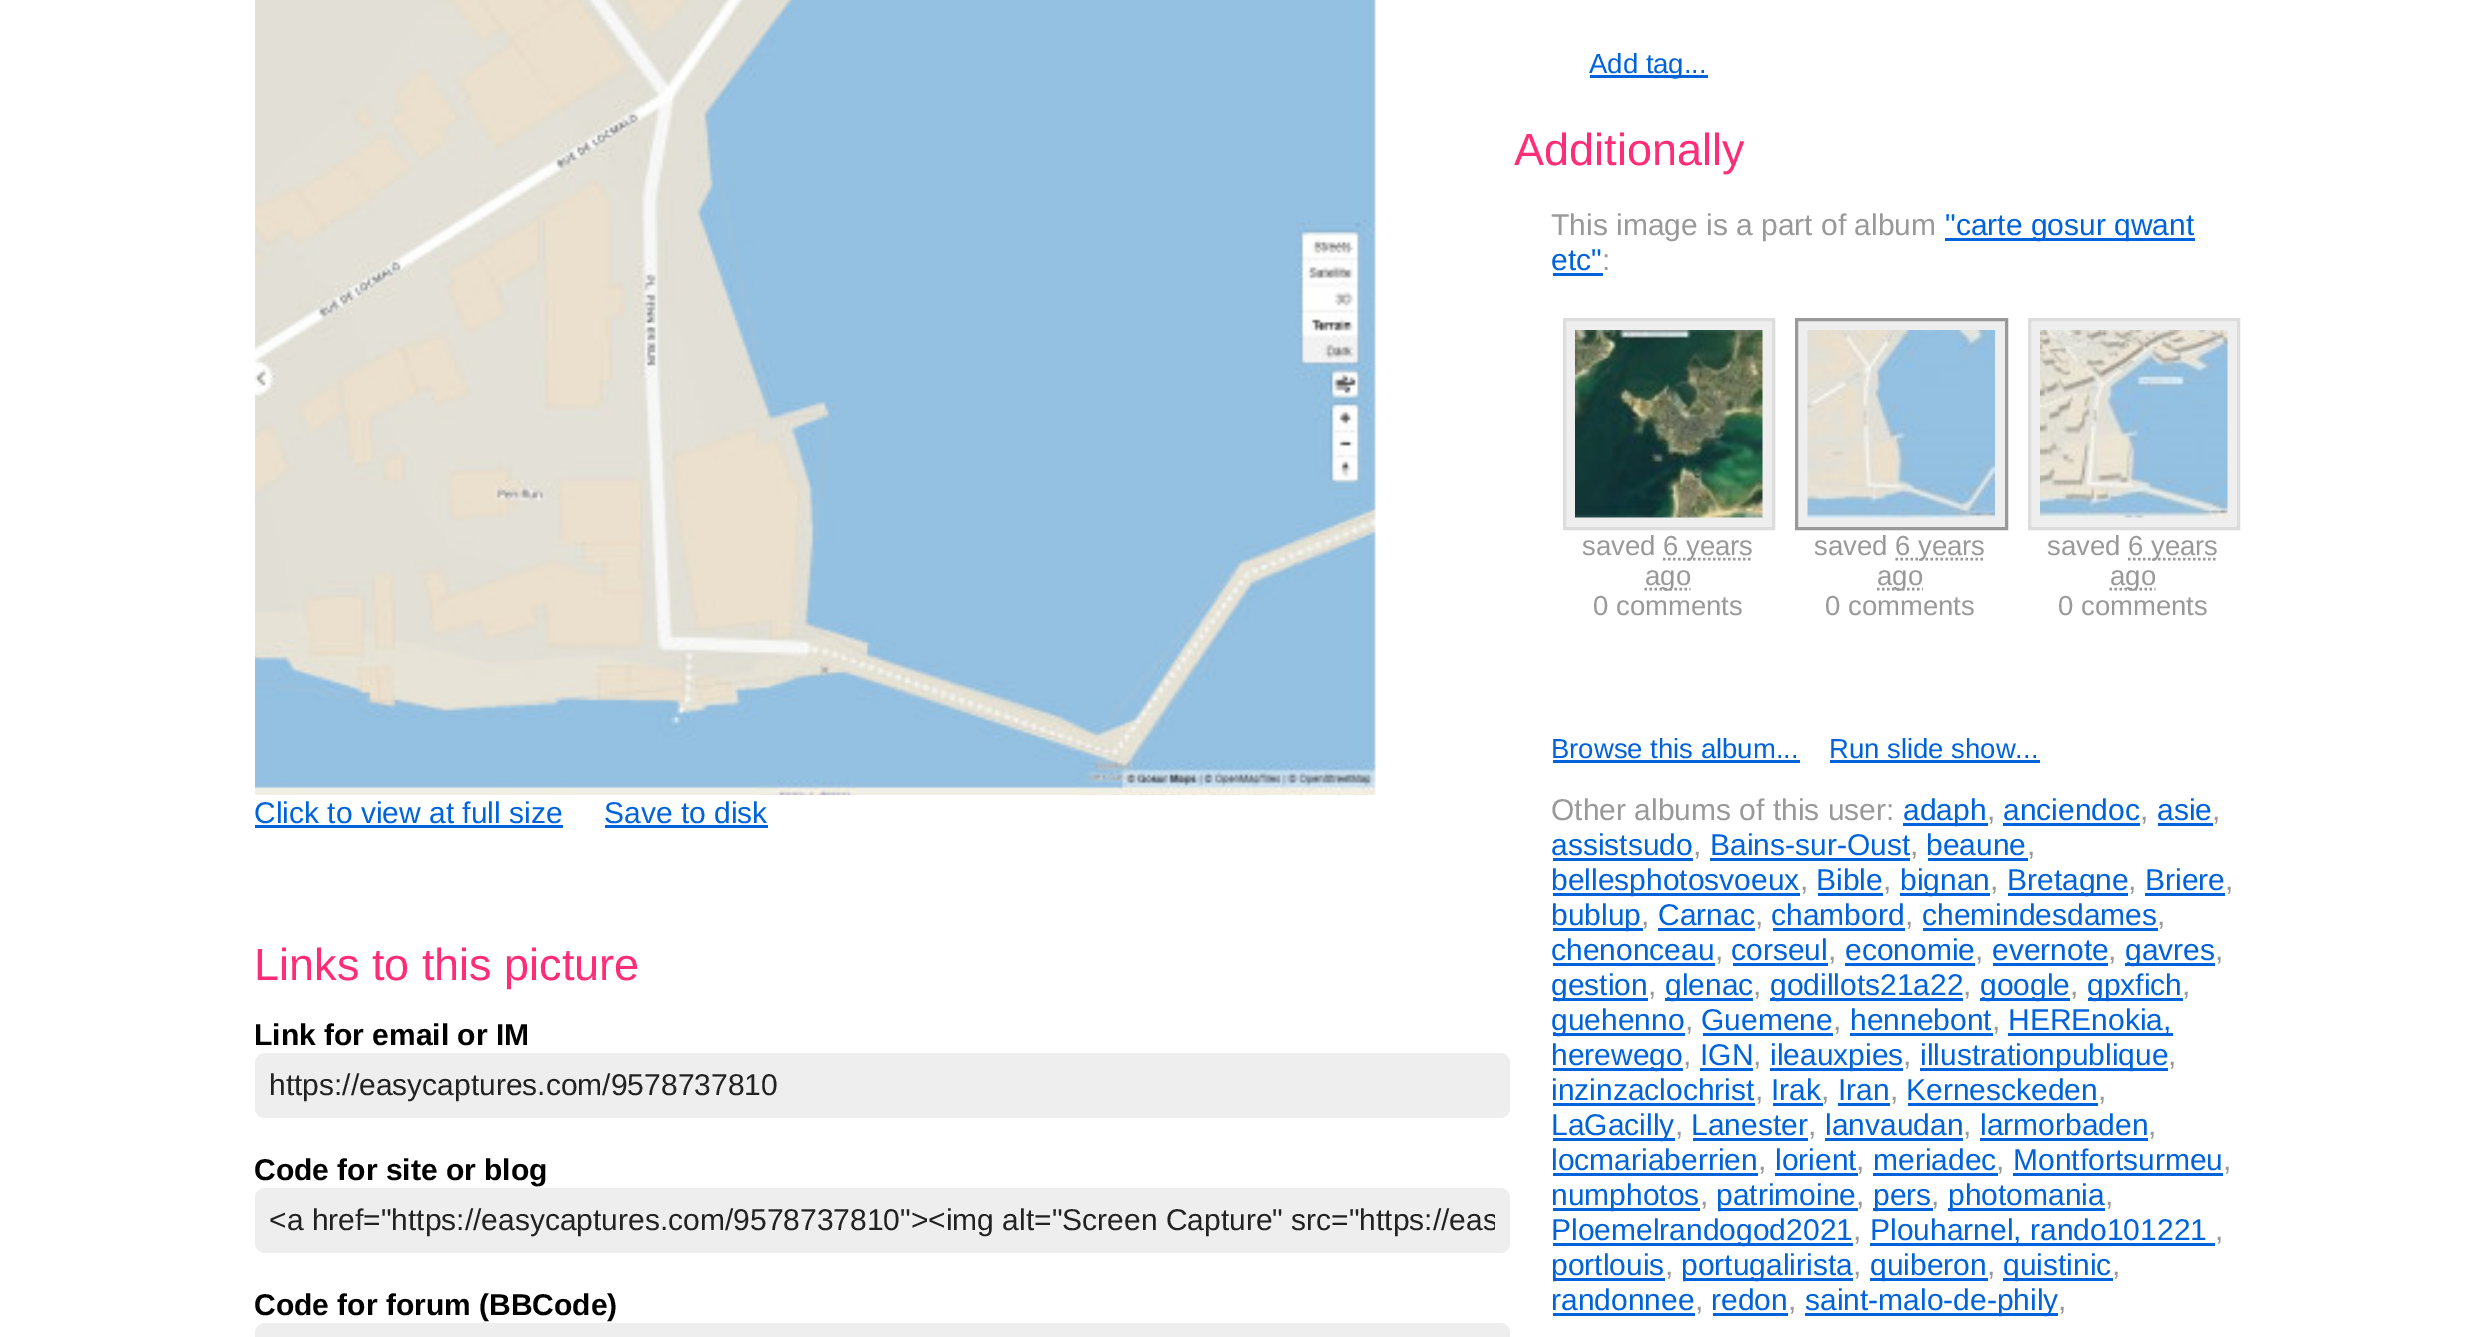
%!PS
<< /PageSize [2491 1337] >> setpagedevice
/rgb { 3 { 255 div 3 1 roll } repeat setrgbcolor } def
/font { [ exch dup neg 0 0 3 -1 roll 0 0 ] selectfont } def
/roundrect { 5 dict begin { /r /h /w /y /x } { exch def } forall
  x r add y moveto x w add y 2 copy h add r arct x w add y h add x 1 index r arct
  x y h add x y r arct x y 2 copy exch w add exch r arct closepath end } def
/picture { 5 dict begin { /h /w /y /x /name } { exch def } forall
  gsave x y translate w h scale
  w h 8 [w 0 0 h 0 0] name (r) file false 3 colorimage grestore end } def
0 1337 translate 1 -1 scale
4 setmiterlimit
255 255 255 rgb
0 0 2491 1337 rectfill
(img/1.rgb) 255 0 1121 795 picture
0 99 220 rgb
255 825 308 3 rectfill
605 825 163 3 rectfill
238 238 238 rgb
255 1053 1255 65 10 roundrect fill
255 1188 1255 65 10 roundrect fill
255 1323 1255 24 10 roundrect fill
[
  [1590 75 118 3 0 99 220]
  [1945 238 250 3 0 99 220]
  [1553 273 50 3 0 99 220]
] { aload pop rgb rectfill } forall
238 238 238 rgb
1564.5 319.5 moveto 1773.5 319.5 lineto 1773.5 528.5 lineto 1564.5 528.5 lineto closepath gsave fill grestore
221 221 221 rgb
3 setlinewidth
stroke
(img/2.rgb) 1575 330 188 188 picture
153 153 153 rgb
2.5 setlinewidth
[2.5 2.5] 0 setdash
1663 559 moveto 1753 559 lineto stroke
1644.5 589 moveto 1690.5 589 lineto stroke
238 238 238 rgb
1796.5 319.5 moveto 2006.5 319.5 lineto 2006.5 528.5 lineto 1796.5 528.5 lineto closepath gsave fill grestore
153 153 153 rgb
3 setlinewidth
[] 0 setdash
stroke
(img/3.rgb) 1807 330 188 188 picture
2.5 setlinewidth
[2.5 2.5] 0 setdash
1895.5 559 moveto 1985.5 559 lineto stroke
1877 589 moveto 1923 589 lineto stroke
238 238 238 rgb
2029.5 319.5 moveto 2238.5 319.5 lineto 2238.5 528.5 lineto 2029.5 528.5 lineto closepath gsave fill grestore
221 221 221 rgb
3 setlinewidth
[] 0 setdash
stroke
(img/4.rgb) 2040 330 188 188 picture
153 153 153 rgb
2.5 setlinewidth
[2.5 2.5] 0 setdash
2128 559 moveto 2218 559 lineto stroke
2109.5 589 moveto 2155.5 589 lineto stroke
[
  [1553 760 247 3 0 99 220]
  [1830 760 210 3 0 99 220]
  [1903 823 85 3 0 99 220]
  [2003 823 137 3 0 99 220]
  [2158 823 55 3 0 99 220]
  [1553 858 140 3 0 99 220]
  [1710 858 200 3 0 99 220]
  [1928 858 100 3 0 99 220]
  [1553 893 247 3 0 99 220]
  [1818 893 65 3 0 99 220]
  [1900 893 90 3 0 99 220]
  [2008 893 120 3 0 99 220]
  [2145 893 80 3 0 99 220]
  [1553 928 90 3 0 99 220]
  [1658 928 97 3 0 99 220]
  [1773 928 132 3 0 99 220]
  [1923 928 235 3 0 99 220]
  [1553 963 162 3 0 99 220]
  [1733 963 95 3 0 99 220]
  [1845 963 130 3 0 99 220]
  [1993 963 115 3 0 99 220]
  [2125 963 90 3 0 99 220]
  [1553 998 95 3 0 99 220]
  [1665 998 88 3 0 99 220]
  [1770 998 193 3 0 99 220]
  [1980 998 90 3 0 99 220]
  [2088 998 95 3 0 99 220]
  [1553 1033 132 3 0 99 220]
  [1703 1033 130 3 0 99 220]
  [1850 1033 143 3 0 99 220]
  [2008 1033 165 3 0 99 220]
  [1553 1068 130 3 0 99 220]
  [1700 1068 53 3 0 99 220]
  [1770 1068 133 3 0 99 220]
  [1920 1068 248 3 0 99 220]
  [1553 1103 202 3 0 99 220]
  [1773 1103 50 3 0 99 220]
  [1838 1103 52 3 0 99 220]
  [1908 1103 190 3 0 99 220]
  [1553 1138 122 3 0 99 220]
  [1693 1138 115 3 0 99 220]
  [1825 1138 138 3 0 99 220]
  [1980 1138 168 3 0 99 220]
  [1553 1173 205 3 0 99 220]
  [1775 1173 83 3 0 99 220]
  [1873 1173 125 3 0 99 220]
  [2013 1173 210 3 0 99 220]
  [1553 1208 147 3 0 99 220]
  [1718 1208 140 3 0 99 220]
  [1873 1208 60 3 0 99 220]
  [1948 1208 157 3 0 99 220]
  [1553 1243 300 3 0 99 220]
  [1870 1243 345 3 0 99 220]
  [1553 1278 112 3 0 99 220]
  [1683 1278 170 3 0 99 220]
  [1870 1278 118 3 0 99 220]
  [2003 1278 110 3 0 99 220]
  [1553 1313 142 3 0 99 220]
  [1713 1313 75 3 0 99 220]
  [1805 1313 253 3 0 99 220]
] { aload pop rgb rectfill } forall
/LiberationSans-Regular 30 font
254 823 moveto (Click to view at full size) show
604 823 moveto (Save to disk) show
/LiberationSans-Regular 45 font
255 45 119 rgb
254 980 moveto (Links to this picture) show
/LiberationSans-Bold 30 font
0 0 0 rgb
254 1045 moveto (Link for email or IM) show
/LiberationSans-Regular 30 font
34 34 34 rgb
269 1095 moveto (https://easycaptures.com/9578737810) show
/LiberationSans-Bold 30 font
0 0 0 rgb
254 1180 moveto (Code for site or blog) show
gsave
270 1203 1225 35 rectclip
/LiberationSans-Regular 30 font
34 34 34 rgb
269 1230 moveto (<a href="https://easycaptures.com/9578737810"><img alt="Screen Capture" src="https://eas) show
grestore
254 1315 moveto (Code for forum \(BBCode\)) show
/LiberationSans-Regular 27.5 font
0 99 220 rgb
1589 73 moveto (Add tag...) show
/LiberationSans-Regular 45 font
255 45 119 rgb
1514 165 moveto (Additionally) show
/LiberationSans-Regular 30 font
153 153 153 rgb
1551 235 moveto (This image is a part of album) show
0 99 220 rgb
1945 235 moveto ("carte gosur qwant) show
1551 270 moveto (etc") show
153 153 153 rgb
1602 270 moveto (:) show
/LiberationSans-Regular 27.5 font
[
  [(saved) 1582 555]
  [(6 years) 1663 555]
  [(ago) 1645 585]
  [(0 comments) 1593 615]
  [(saved) 1814 555]
  [(6 years) 1895 555]
  [(ago) 1877 585]
  [(0 comments) 1825 615]
  [(saved) 2047 555]
  [(6 years) 2128 555]
  [(ago) 2110 585]
  [(0 comments) 2058 615]
] { aload pop moveto show } forall
0 99 220 rgb
1551 758 moveto (Browse this album...) show
1829 758 moveto (Run slide show...) show
/LiberationSans-Regular 30 font
153 153 153 rgb
1551 820 moveto (Other albums of this user:) show
0 99 220 rgb
1903 820 moveto (adaph) show
153 153 153 rgb
1987 820 moveto (,) show
0 99 220 rgb
2003 820 moveto (anciendoc) show
153 153 153 rgb
2140 820 moveto (,) show
0 99 220 rgb
2157 820 moveto (asie) show
153 153 153 rgb
2212 820 moveto (,) show
0 99 220 rgb
1551 855 moveto (assistsudo) show
153 153 153 rgb
1693 855 moveto (,) show
0 99 220 rgb
1710 855 moveto (Bains-sur-Oust) show
153 153 153 rgb
1910 855 moveto (,) show
0 99 220 rgb
1926 855 moveto (beaune) show
153 153 153 rgb
2027 855 moveto (,) show
0 99 220 rgb
1551 890 moveto (bellesphotosvoeux) show
153 153 153 rgb
1800 890 moveto (,) show
0 99 220 rgb
1816 890 moveto (Bible) show
153 153 153 rgb
1883 890 moveto (,) show
0 99 220 rgb
1900 890 moveto (bignan) show
153 153 153 rgb
1990 890 moveto (,) show
0 99 220 rgb
2007 890 moveto (Bretagne) show
153 153 153 rgb
2128 890 moveto (,) show
0 99 220 rgb
2145 890 moveto (Briere) show
153 153 153 rgb
2225 890 moveto (,) show
0 99 220 rgb
1551 925 moveto (bublup) show
153 153 153 rgb
1641 925 moveto (,) show
0 99 220 rgb
1658 925 moveto (Carnac) show
153 153 153 rgb
1755 925 moveto (,) show
0 99 220 rgb
1771 925 moveto (chambord) show
153 153 153 rgb
1905 925 moveto (,) show
0 99 220 rgb
1922 925 moveto (chemindesdames) show
153 153 153 rgb
2157 925 moveto (,) show
0 99 220 rgb
1551 960 moveto (chenonceau) show
153 153 153 rgb
1715 960 moveto (,) show
0 99 220 rgb
1731 960 moveto (corseul) show
153 153 153 rgb
1828 960 moveto (,) show
0 99 220 rgb
1845 960 moveto (economie) show
153 153 153 rgb
1975 960 moveto (,) show
0 99 220 rgb
1992 960 moveto (evernote) show
153 153 153 rgb
2108 960 moveto (,) show
0 99 220 rgb
2125 960 moveto (gavres) show
153 153 153 rgb
2215 960 moveto (,) show
0 99 220 rgb
1551 995 moveto (gestion) show
153 153 153 rgb
1648 995 moveto (,) show
0 99 220 rgb
1665 995 moveto (glenac) show
153 153 153 rgb
1753 995 moveto (,) show
0 99 220 rgb
1770 995 moveto (godillots21a22) show
153 153 153 rgb
1963 995 moveto (,) show
0 99 220 rgb
1980 995 moveto (google) show
153 153 153 rgb
2070 995 moveto (,) show
0 99 220 rgb
2087 995 moveto (gpxfich) show
153 153 153 rgb
2182 995 moveto (,) show
0 99 220 rgb
1551 1030 moveto (guehenno) show
153 153 153 rgb
1685 1030 moveto (,) show
0 99 220 rgb
1701 1030 moveto (Guemene) show
153 153 153 rgb
1833 1030 moveto (,) show
0 99 220 rgb
1850 1030 moveto (hennebont) show
153 153 153 rgb
1992 1030 moveto (,) show
0 99 220 rgb
2008 1030 moveto (HEREnokia,) show
1551 1065 moveto (herewego) show
153 153 153 rgb
1683 1065 moveto (,) show
0 99 220 rgb
1700 1065 moveto (IGN) show
153 153 153 rgb
1753 1065 moveto (,) show
0 99 220 rgb
1770 1065 moveto (ileauxpies) show
153 153 153 rgb
1903 1065 moveto (,) show
0 99 220 rgb
1920 1065 moveto (illustrationpublique) show
153 153 153 rgb
2168 1065 moveto (,) show
0 99 220 rgb
1551 1100 moveto (inzinzaclochrist) show
153 153 153 rgb
1755 1100 moveto (,) show
0 99 220 rgb
1771 1100 moveto (Irak) show
153 153 153 rgb
1821 1100 moveto (,) show
0 99 220 rgb
1838 1100 moveto (Iran) show
153 153 153 rgb
1890 1100 moveto (,) show
0 99 220 rgb
1906 1100 moveto (Kernesckeden) show
153 153 153 rgb
2098 1100 moveto (,) show
0 99 220 rgb
1551 1135 moveto (LaGacilly) show
153 153 153 rgb
1675 1135 moveto (,) show
0 99 220 rgb
1691 1135 moveto (Lanester) show
153 153 153 rgb
1808 1135 moveto (,) show
0 99 220 rgb
1825 1135 moveto (lanvaudan) show
153 153 153 rgb
1963 1135 moveto (,) show
0 99 220 rgb
1980 1135 moveto (larmorbaden) show
153 153 153 rgb
2148 1135 moveto (,) show
0 99 220 rgb
1551 1170 moveto (locmariaberrien) show
153 153 153 rgb
1758 1170 moveto (,) show
0 99 220 rgb
1775 1170 moveto (lorient) show
153 153 153 rgb
1856 1170 moveto (,) show
0 99 220 rgb
1873 1170 moveto (meriadec) show
153 153 153 rgb
1996 1170 moveto (,) show
0 99 220 rgb
2013 1170 moveto (Montfortsurmeu) show
153 153 153 rgb
2223 1170 moveto (,) show
0 99 220 rgb
1551 1205 moveto (numphotos) show
153 153 153 rgb
1700 1205 moveto (,) show
0 99 220 rgb
1716 1205 moveto (patrimoine) show
153 153 153 rgb
1856 1205 moveto (,) show
0 99 220 rgb
1873 1205 moveto (pers) show
153 153 153 rgb
1931 1205 moveto (,) show
0 99 220 rgb
1948 1205 moveto (photomania) show
153 153 153 rgb
2105 1205 moveto (,) show
0 99 220 rgb
1551 1240 moveto (Ploemelrandogod2021) show
153 153 153 rgb
1853 1240 moveto (,) show
0 99 220 rgb
1870 1240 moveto (Plouharnel, rando101221) show
153 153 153 rgb
2215 1240 moveto (,) show
0 99 220 rgb
1551 1275 moveto (portlouis) show
153 153 153 rgb
1665 1275 moveto (,) show
0 99 220 rgb
1681 1275 moveto (portugalirista) show
153 153 153 rgb
1853 1275 moveto (,) show
0 99 220 rgb
1870 1275 moveto (quiberon) show
153 153 153 rgb
1987 1275 moveto (,) show
0 99 220 rgb
2003 1275 moveto (quistinic) show
153 153 153 rgb
2112 1275 moveto (,) show
0 99 220 rgb
1551 1310 moveto (randonnee) show
153 153 153 rgb
1695 1310 moveto (,) show
0 99 220 rgb
1711 1310 moveto (redon) show
153 153 153 rgb
1788 1310 moveto (,) show
0 99 220 rgb
1805 1310 moveto (saint-malo-de-phily) show
153 153 153 rgb
2058 1310 moveto (,) show
showpage
